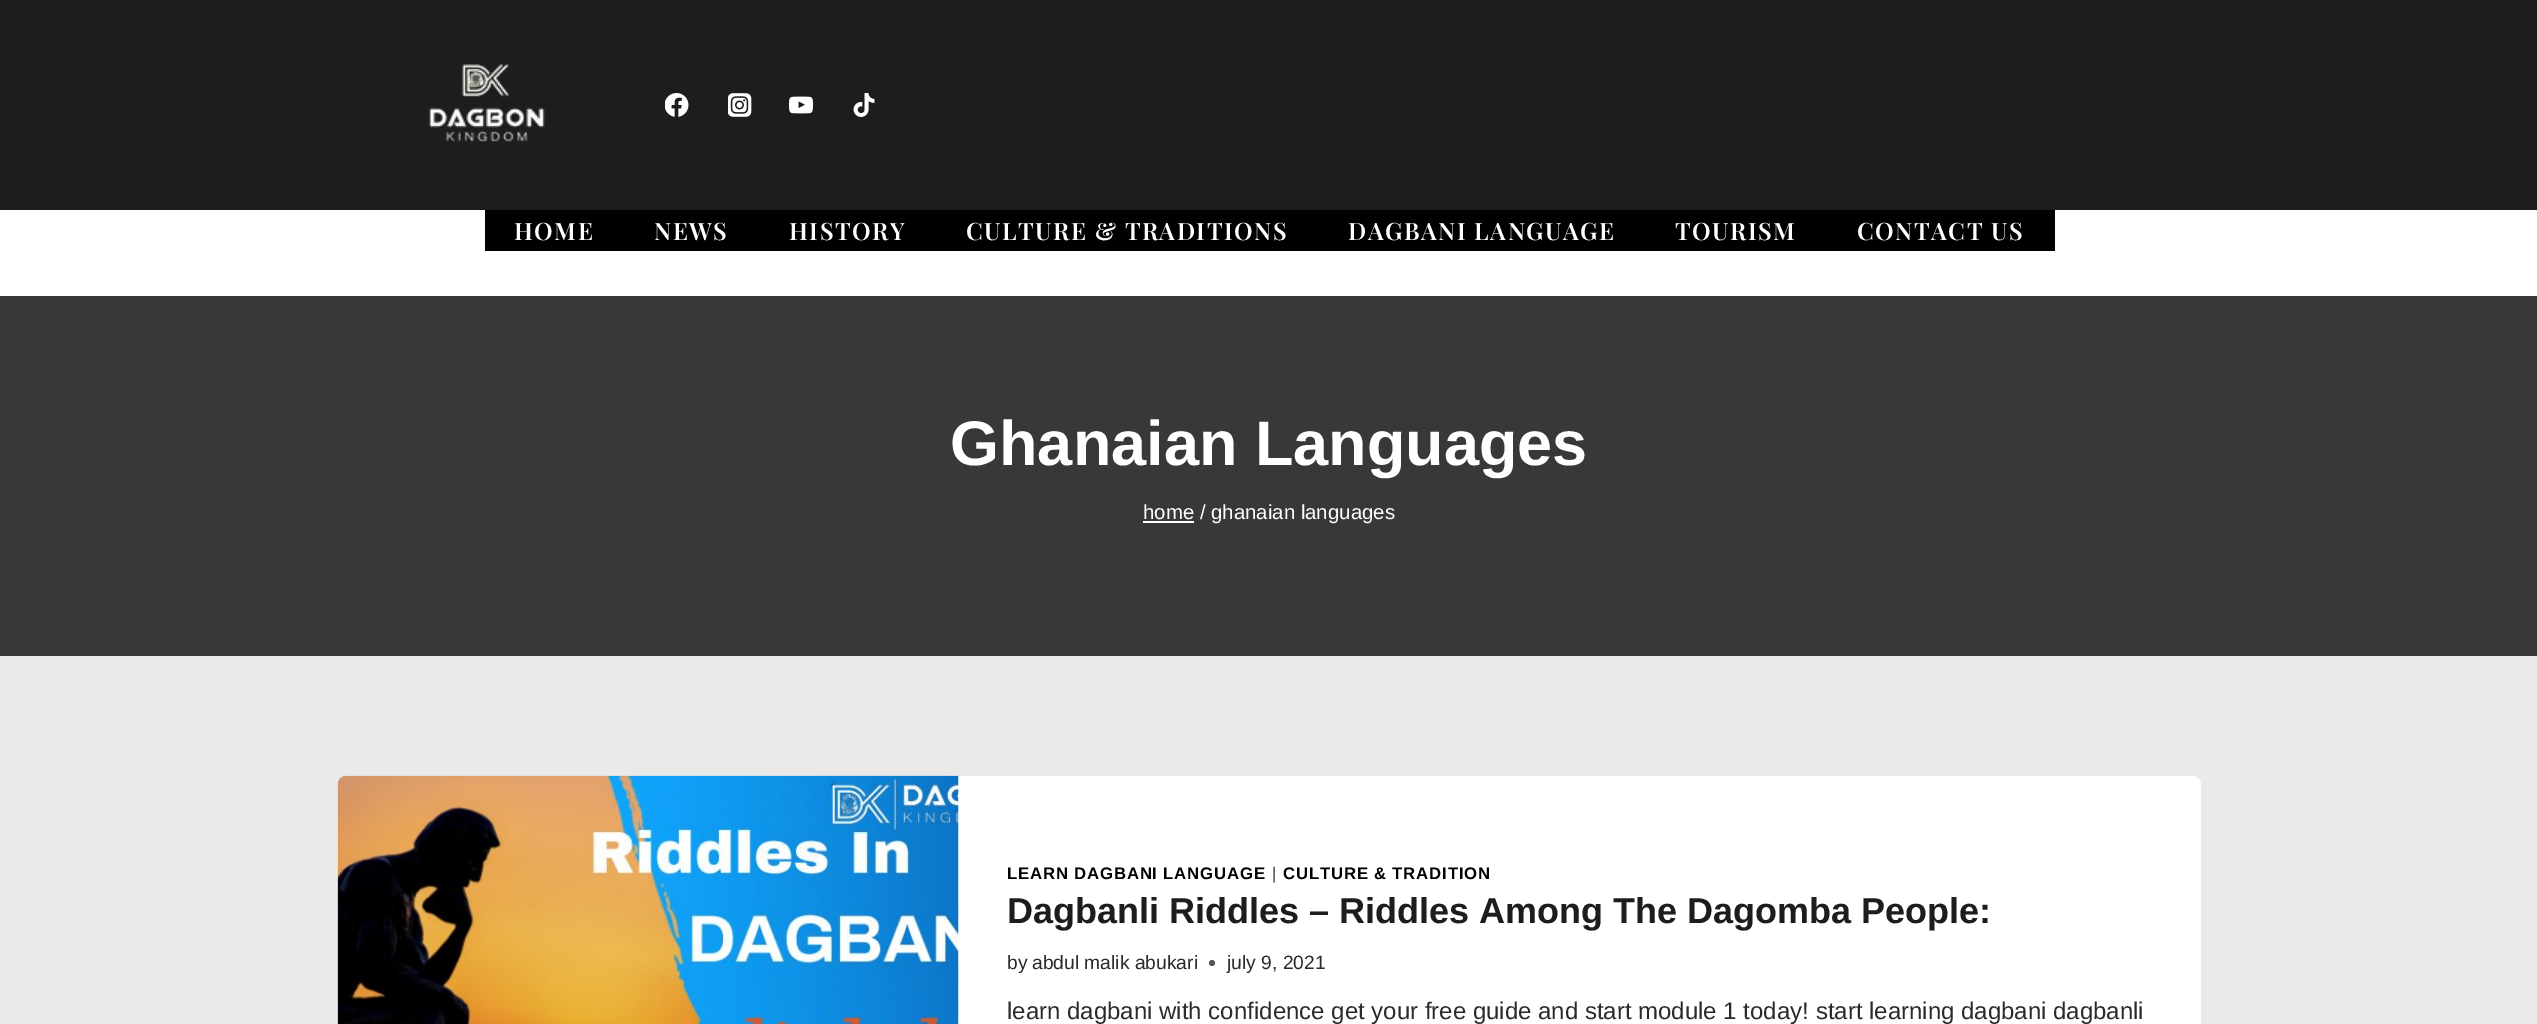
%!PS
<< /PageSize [2537 1024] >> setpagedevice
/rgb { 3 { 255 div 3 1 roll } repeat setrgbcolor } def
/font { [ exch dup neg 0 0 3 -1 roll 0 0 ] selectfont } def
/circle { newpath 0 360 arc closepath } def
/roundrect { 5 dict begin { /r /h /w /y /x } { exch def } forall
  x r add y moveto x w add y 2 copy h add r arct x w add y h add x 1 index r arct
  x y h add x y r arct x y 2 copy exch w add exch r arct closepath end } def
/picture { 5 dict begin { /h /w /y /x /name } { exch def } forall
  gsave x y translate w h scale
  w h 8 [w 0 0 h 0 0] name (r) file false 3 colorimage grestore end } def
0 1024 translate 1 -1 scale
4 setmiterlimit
234 234 234 rgb
0 0 2537 1024 rectfill
29 29 29 rgb
0 0 2537 210 rectfill
(img/1.rgb) 428 64 117 78 picture
(img/2.rgb) 665 93 24 24 picture
(img/3.rgb) 728 93 24 24 picture
(img/4.rgb) 789 96 24 18 picture
(img/5.rgb) 853 93 22 24 picture
[
  [0 210 2537 86 255 255 255]
  [485 210 1570 41 0 0 0]
  [0 296 2537 360 56 56 56]
  [1143 521 51 2 255 255 255]
] { aload pop rgb rectfill } forall
338 776 1863 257 9 roundrect fill
(img/6.rgb) 337 775 622 249 picture
85 85 85 rgb
1212 963 3 circle fill
/PlayfairDisplay-SemiBold 24 font
255 255 255 rgb
514 240 moveto 1.5 0 (HOME) ashow
654 240 moveto 1.5 0 (NEWS) ashow
789 240 moveto 1.5 0 (HISTORY) ashow
966 240 moveto 1.5 0 (CULTURE & TRADITIONS) ashow
1348 240 moveto 1.5 0 (DAGBANI LANGUAGE) ashow
1675 240 moveto 1.5 0 (TOURISM) ashow
1857 240 moveto 1.5 0 (CONTACT US) ashow
/LiberationSans-Bold 63 font
950 465 moveto (Ghanaian Languages) show
/LiberationSans-Regular 20.4 font
1143 519 moveto (home / ghanaian languages) show
/LiberationSans-Bold 16.75 font
0 0 0 rgb
1007 879 moveto 0.8 0 (LEARN DAGBANI LANGUAGE) ashow
/LiberationSans-Regular 16.75 font
43 43 43 rgb
1272 879 moveto 0.8 0 (|) ashow
/LiberationSans-Bold 16.75 font
0 0 0 rgb
1283 879 moveto 0.8 0 (CULTURE & TRADITION) ashow
/LiberationSans-Bold 36 font
29 29 29 rgb
1007 923 moveto (Dagbanli Riddles – Riddles Among The Dagomba People:) show
/LiberationSans-Regular 19.25 font
43 43 43 rgb
[
  [(by) 1007 969]
  [(abdul malik abukari) 1032 969]
  [(july 9, 2021) 1227 969]
] { aload pop moveto show } forall
/LiberationSans-Regular 24 font
1007 1019 moveto (learn dagbani with confidence get your free guide and start module 1 today! start learning dagbani dagbanli) show
showpage
